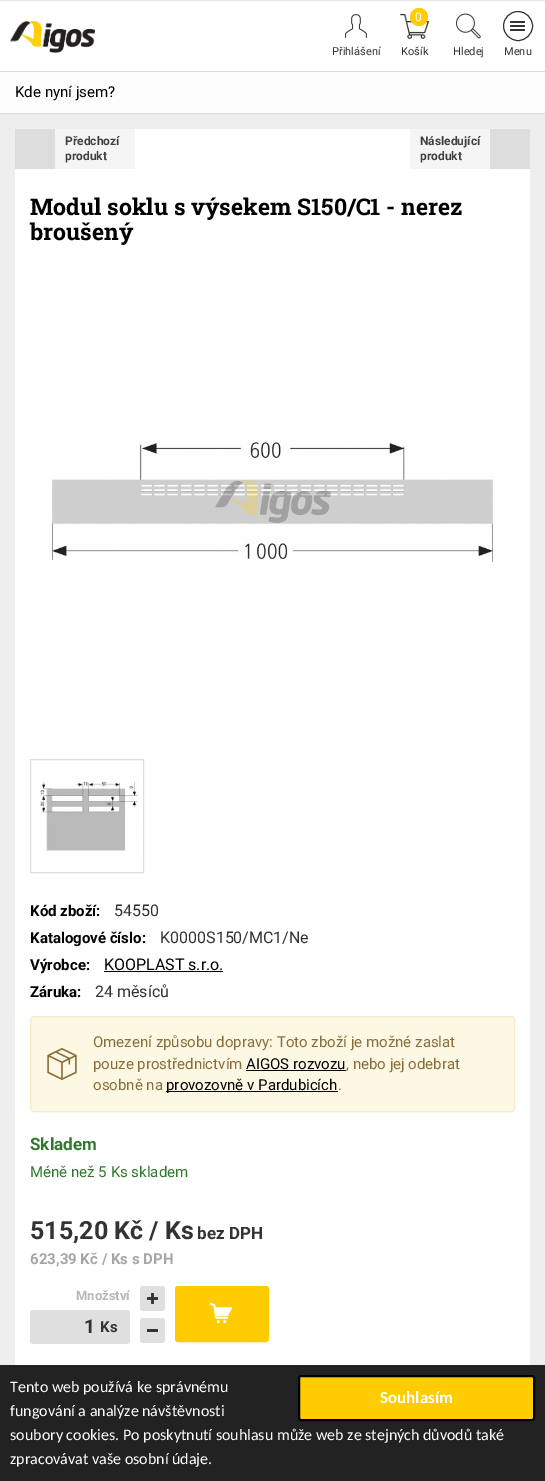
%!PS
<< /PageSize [545 1481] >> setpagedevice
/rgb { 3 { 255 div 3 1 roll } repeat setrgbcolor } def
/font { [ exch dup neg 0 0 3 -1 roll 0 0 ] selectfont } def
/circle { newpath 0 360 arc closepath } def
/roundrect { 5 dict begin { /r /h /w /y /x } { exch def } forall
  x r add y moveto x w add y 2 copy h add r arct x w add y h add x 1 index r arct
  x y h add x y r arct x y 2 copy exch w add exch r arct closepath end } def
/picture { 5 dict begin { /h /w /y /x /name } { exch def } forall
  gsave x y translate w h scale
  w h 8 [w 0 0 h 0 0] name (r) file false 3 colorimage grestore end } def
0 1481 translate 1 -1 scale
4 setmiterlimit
238 238 238 rgb
0 0 545 1481 rectfill
[
  [0 1 545 70 255 255 255]
  [0 0 545 1 231 231 231]
  [0 71 545 1 218 218 218]
] { aload pop rgb rectfill } forall
(img/1.rgb) 10 21 85 32 picture
(img/2.rgb) 345 14 22 24 picture
(img/3.rgb) 400 14 29 25 picture
255 204 0 rgb
419 17 9 circle fill
(img/4.rgb) 456 13 25 26 picture
51 51 51 rgb
518 26 14.5 circle stroke
510 21 15 2 1 roundrect fill
510 25 15 2 1 roundrect fill
510 29 15 2 1 roundrect fill
[
  [0 72 545 41 253 253 253]
  [0 113 545 1 218 218 218]
  [15 129 515 1236 255 255 255]
  [55 129 80 40 245 245 245]
  [15 129 40 40 221 221 221]
  [410 129 80 40 245 245 245]
  [490 129 40 40 221 221 221]
] { aload pop rgb rectfill } forall
(img/5.rgb) 52 440 441 122 picture
30.5 759.5 113 113 rectstroke
(img/6.rgb) 40 781 98 70 picture
0 0 0 rgb
104 971 119 1 rectfill
252 248 227 rgb
30 1016 485 96 4 roundrect fill
(img/7.rgb) 47 1048 30 32 picture
250 235 204 rgb
30.5 1016.5 484 95 3.5 roundrect stroke
0 0 0 rgb
246 1070 100 1 rectfill
166 1091 172 1 rectfill
224 223 223 rgb
30 1310 100 34 3 roundrect fill
140 1286 25 25 3 roundrect fill
(img/8.rgb) 147 1293 11 11 picture
140 1318 25 25 3 roundrect fill
51 51 51 rgb
147 1329 11 3 rectfill
255 204 0 rgb
176 1287 92 54 2 roundrect gsave fill grestore
2 setlinewidth
stroke
(img/9.rgb) 210 1302 22 22 picture
34 34 34 rgb
0 1365 545 116 rectfill
255 204 0 rgb
299 1376 235 44 2 roundrect gsave fill grestore
0 0 0 rgb
stroke
/Roboto-Regular 11 font
51 51 51 rgb
332 55 moveto (Přihlášení) show
/Roboto-Regular 12 font
255 255 255 rgb
415 21 moveto (0) show
/Roboto-Regular 11 font
51 51 51 rgb
[
  [(Košík) 401 55]
  [(Hledej) 453 55]
  [(Menu) 504 55]
] { aload pop moveto show } forall
/Roboto-Regular 15 font
0 0 0 rgb
15 97 moveto (Kde nyní jsem?) show
/Roboto-Bold 12 font
64 64 64 rgb
[
  [(Předchozí) 65 145]
  [(produkt) 65 160]
  [(Následující) 420 145]
  [(produkt) 420 160]
] { aload pop moveto show } forall
/RobotoSlab-Bold 23 font
0 0 0 rgb
30 215 moveto (Modul soklu s výsekem S150/C1 - nerez) show
30 240 moveto (broušený) show
/Roboto-Bold 15 font
30 916 moveto (Kód zboží:) show
/Roboto-Regular 16 font
51 51 51 rgb
114 916 moveto (54550) show
/Roboto-Bold 15 font
0 0 0 rgb
30 943 moveto (Katalogové číslo:) show
/Roboto-Regular 16 font
51 51 51 rgb
160 943 moveto (K0000S150/MC1/Ne) show
/Roboto-Bold 15 font
0 0 0 rgb
30 970 moveto (Výrobce:) show
/Roboto-Regular 16 font
104 970 moveto (KOOPLAST s.r.o.) show
/Roboto-Bold 15 font
30 997 moveto (Záruka:) show
/Roboto-Regular 16 font
51 51 51 rgb
95 997 moveto (24 měsíců) show
/Roboto-Regular 15 font
138 109 59 rgb
93 1047 moveto (Omezení způsobu dopravy: Toto zboží je možné zaslat) show
93 1069 moveto (pouze prostřednictvím) show
0 0 0 rgb
246 1069 moveto (AIGOS rozvozu) show
138 109 59 rgb
346 1069 moveto (, nebo jej odebrat) show
93 1090 moveto (osobně na) show
0 0 0 rgb
166 1090 moveto (provozovně v Pardubicích) show
138 109 59 rgb
338 1090 moveto (.) show
/Roboto-Bold 17 font
47 121 43 rgb
30 1150 moveto (Skladem) show
/Roboto-Regular 15 font
30 1177 moveto (Méně než 5 Ks skladem) show
/Roboto-Bold 25 font
51 51 51 rgb
30 1239 moveto (515,20 Kč / Ks) show
/Roboto-Bold 17 font
197 1239 moveto (bez DPH) show
/Roboto-Bold 15 font
166 166 166 rgb
30 1264 moveto (623,39 Kč / Ks s DPH) show
/Roboto-Bold 13 font
185 184 184 rgb
76 1300 moveto (Množství) show
/Roboto-Bold 19 font
51 51 51 rgb
84 1333 moveto (1) show
/Roboto-Bold 15 font
100 1332 moveto (Ks) show
/Carlito-Regular 16 font
255 255 255 rgb
[
  [(Tento web používá ke správnému) 10 1392]
  [(fungování a analýze návštěvnosti) 10 1416]
  [(soubory cookies. Po poskytnutí souhlasu může web ze stejných důvodů také) 10 1440]
  [(zpracovávat vaše osobní údaje.) 10 1464]
] { aload pop moveto show } forall
/Carlito-Bold 17 font
380 1403 moveto (Souhlasím) show
showpage
